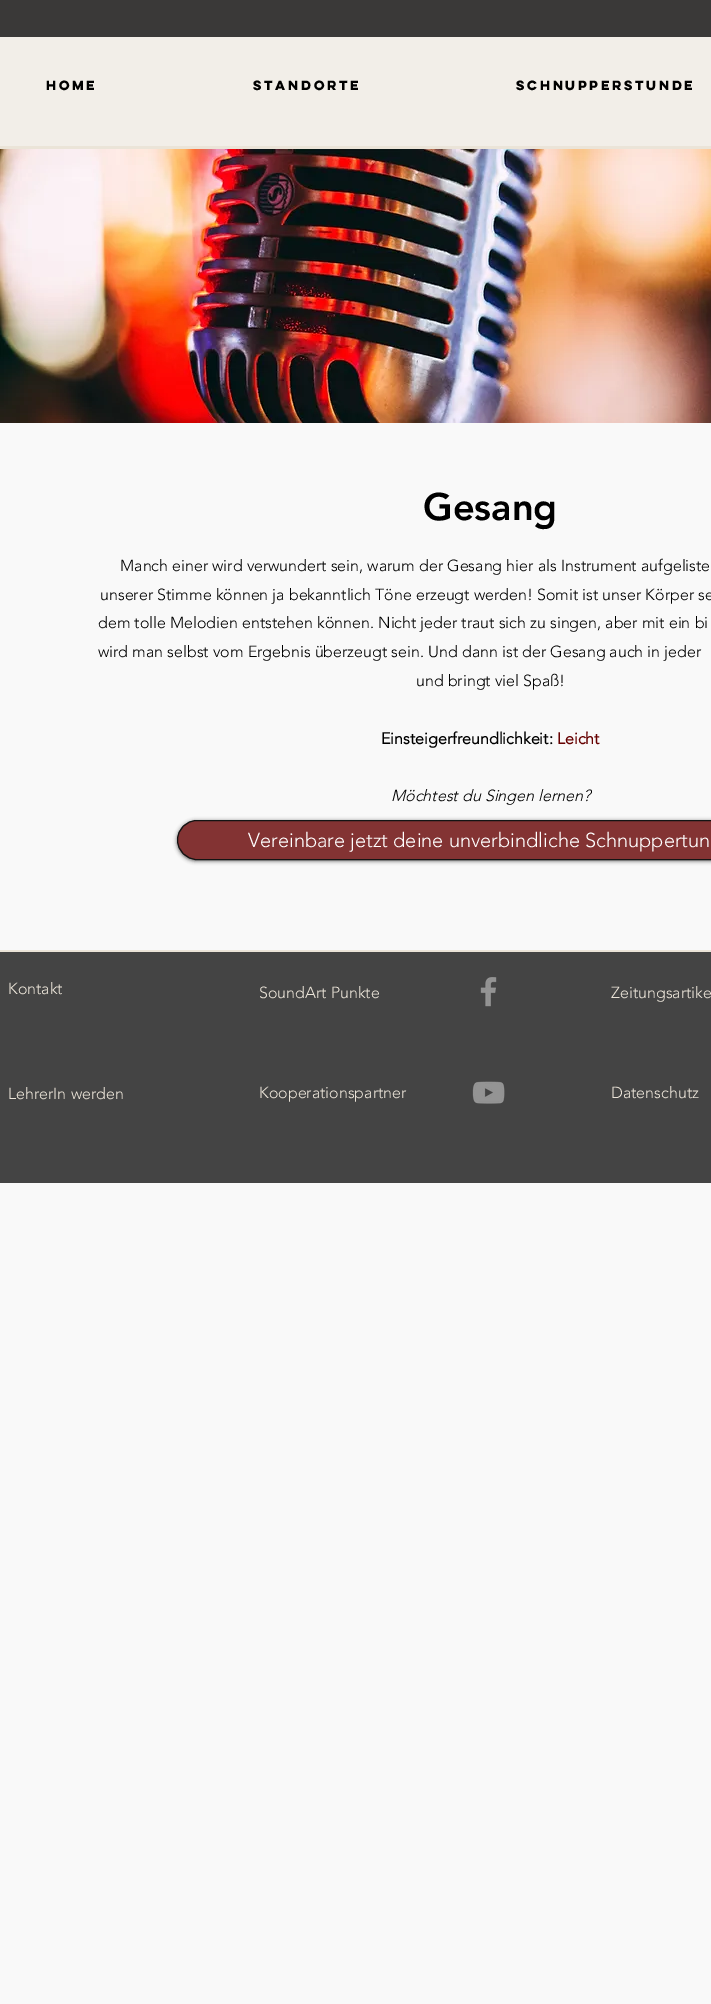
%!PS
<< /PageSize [711 2004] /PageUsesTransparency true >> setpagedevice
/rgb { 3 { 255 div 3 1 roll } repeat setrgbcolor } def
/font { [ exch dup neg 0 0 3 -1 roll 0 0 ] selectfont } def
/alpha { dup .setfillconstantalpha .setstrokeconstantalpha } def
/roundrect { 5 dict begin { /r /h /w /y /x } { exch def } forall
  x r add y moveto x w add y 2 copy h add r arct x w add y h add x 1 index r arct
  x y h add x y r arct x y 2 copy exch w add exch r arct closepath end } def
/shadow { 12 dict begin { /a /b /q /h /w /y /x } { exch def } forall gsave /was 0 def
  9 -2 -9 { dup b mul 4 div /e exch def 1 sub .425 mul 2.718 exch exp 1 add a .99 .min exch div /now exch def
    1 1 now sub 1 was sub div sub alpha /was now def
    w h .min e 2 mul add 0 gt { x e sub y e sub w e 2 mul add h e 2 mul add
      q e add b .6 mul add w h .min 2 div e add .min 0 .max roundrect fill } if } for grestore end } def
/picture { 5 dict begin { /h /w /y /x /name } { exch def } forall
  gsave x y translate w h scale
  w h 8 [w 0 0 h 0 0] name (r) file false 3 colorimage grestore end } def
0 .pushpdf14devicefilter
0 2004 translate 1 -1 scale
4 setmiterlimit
249 249 249 rgb
0 0 711 2004 rectfill
[
  [0 37 711 109 242 238 232]
  [0 146 711 3 235 228 216]
  [0 0 711 37 58 57 56]
] { aload pop rgb rectfill } forall
(img/1.rgb) 0 149 711 274 picture
gsave
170 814 moveto 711 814 lineto 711 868 lineto 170 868 lineto closepath 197 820 moveto 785 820 lineto 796 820 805 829 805 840 curveto 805 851 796 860 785 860 curveto 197 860 lineto 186 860 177 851 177 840 curveto 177 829 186 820 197 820 curveto closepath eoclip newpath
0 0 0 rgb
177 821 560 40 20 2 0.6 shadow
grestore
0.8 alpha
102 1 1 rgb
177.5 820.5 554 39 19.5 roundrect fill
1 alpha
20 20 20 rgb
177.5 820.5 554 39 19.5 roundrect stroke
68 68 68 rgb
0 952 711 231 rectfill
235 228 216 rgb
0 950 711 2 rectfill
(img/2.rgb) 480 977 17 30 picture
(img/3.rgb) 472 1081 33 23 picture
/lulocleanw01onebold-Bold 12 font
0 0 0 rgb
[
  [(Home) 46 90]
  [(Standorte) 253 90]
  [(Schnupperstunde) 516 90]
] { aload pop moveto show } forall
/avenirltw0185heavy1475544-Black 38 font
423 520 moveto (Gesang) show
/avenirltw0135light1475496-Light 16 font
[
  [(Manch einer wird verwundert sein, warum der Gesang hier als Instrument aufgeliste) 120 571]
  [(unserer Stimme können ja bekanntlich Töne erzeugt werden! Somit ist unser Körper se) 100 600]
  [(dem tolle Melodien entstehen können. Nicht jeder traut sich zu singen, aber mit ein bi) 98 628]
  [(wird man selbst vom Ergebnis überzeugt sein. Und dann ist der Gesang auch in jeder) 98 657]
  [(und bringt viel Spaß!) 416 686]
] { aload pop moveto show } forall
/avenirltw0135light1475496-Bold 16 font
381 744 moveto (Einsteigerfreundlichkeit:) show
102 1 1 rgb
557 744 moveto (Leicht) show
/avenirltw0135light1475496-LightItalic 16 font
0 0 0 rgb
391 801 moveto (Möchtest du Singen lernen?) show
/avenirltw0135light1475496-Light 20 font
255 255 255 rgb
248 847 moveto (Vereinbare jetzt deine unverbindliche Schnuppertun) show
/avenirltw0135light1475496-Light 16 font
235 228 216 rgb
[
  [(Kontakt) 8 994]
  [(SoundArt Punkte) 259 998]
  [(Zeitungsartike) 611 998]
  [(LehrerIn werden) 8 1099]
  [(Kooperationspartner) 259 1098]
  [(Datenschutz) 611 1098]
] { aload pop moveto show } forall
.poppdf14devicefilter showpage
